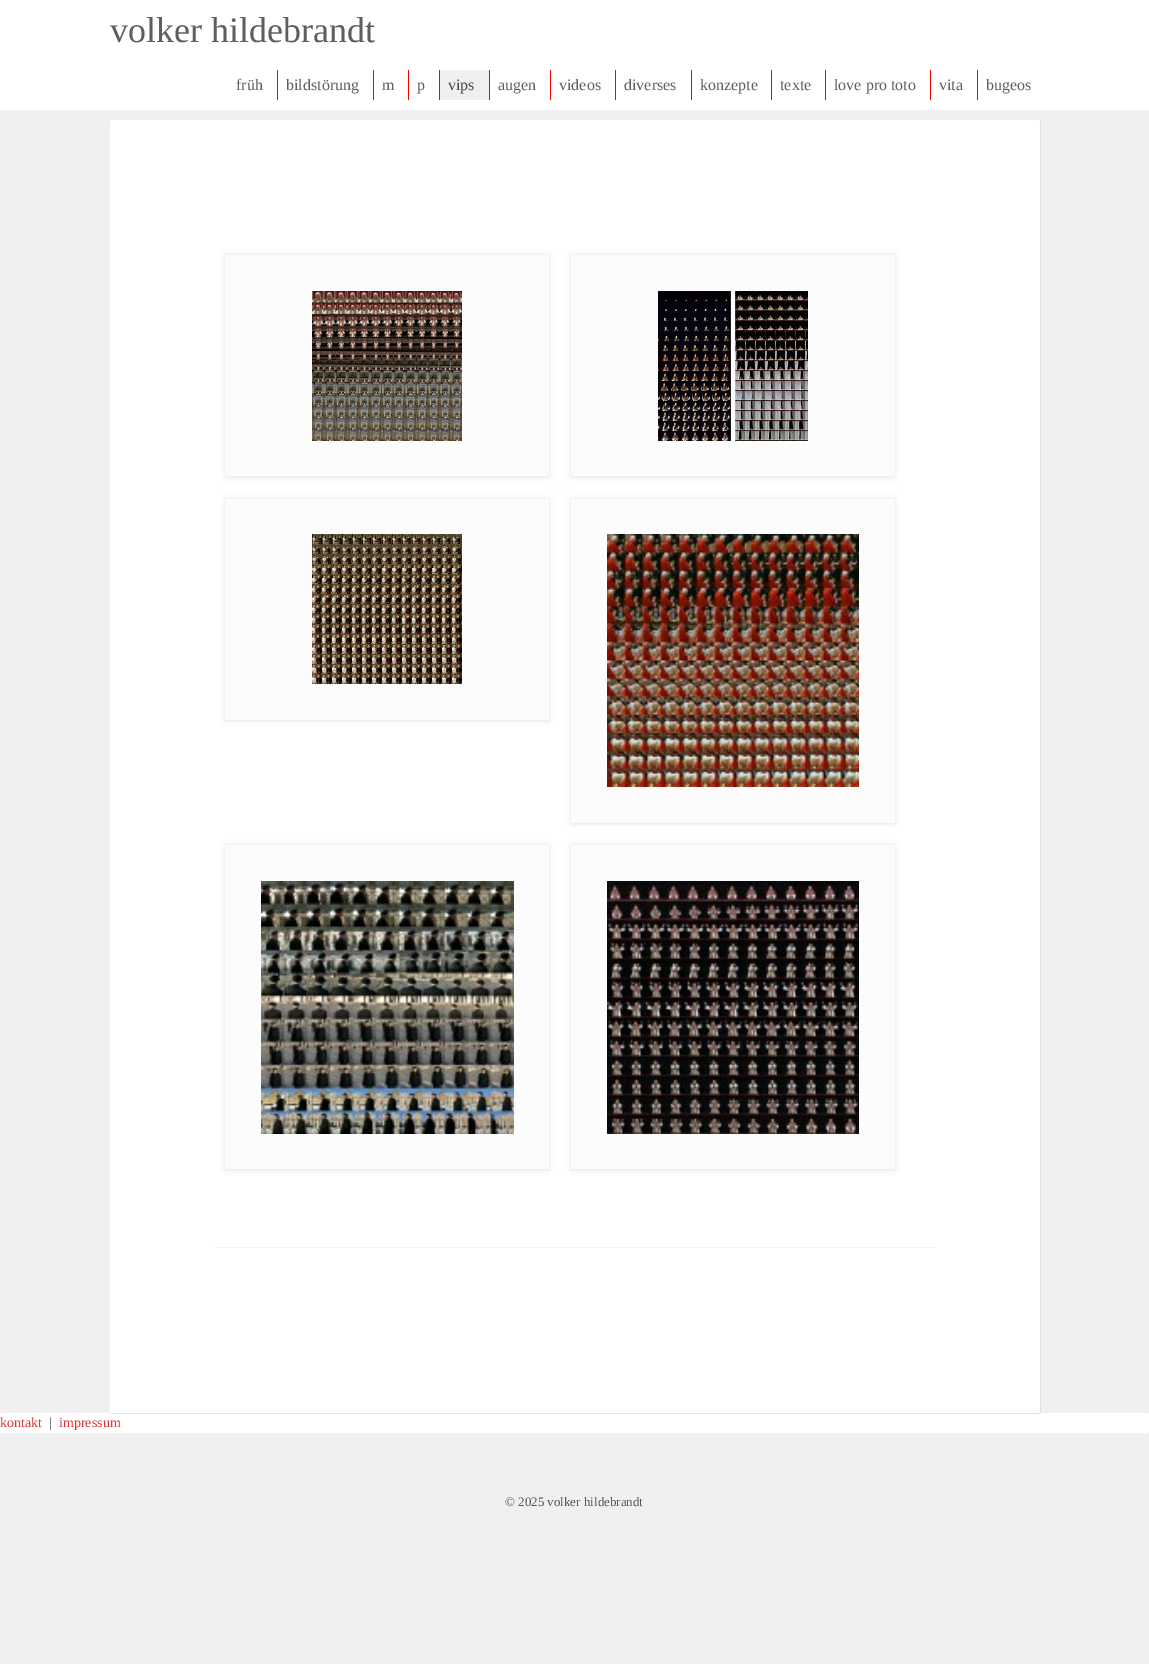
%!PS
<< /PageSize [1149 1664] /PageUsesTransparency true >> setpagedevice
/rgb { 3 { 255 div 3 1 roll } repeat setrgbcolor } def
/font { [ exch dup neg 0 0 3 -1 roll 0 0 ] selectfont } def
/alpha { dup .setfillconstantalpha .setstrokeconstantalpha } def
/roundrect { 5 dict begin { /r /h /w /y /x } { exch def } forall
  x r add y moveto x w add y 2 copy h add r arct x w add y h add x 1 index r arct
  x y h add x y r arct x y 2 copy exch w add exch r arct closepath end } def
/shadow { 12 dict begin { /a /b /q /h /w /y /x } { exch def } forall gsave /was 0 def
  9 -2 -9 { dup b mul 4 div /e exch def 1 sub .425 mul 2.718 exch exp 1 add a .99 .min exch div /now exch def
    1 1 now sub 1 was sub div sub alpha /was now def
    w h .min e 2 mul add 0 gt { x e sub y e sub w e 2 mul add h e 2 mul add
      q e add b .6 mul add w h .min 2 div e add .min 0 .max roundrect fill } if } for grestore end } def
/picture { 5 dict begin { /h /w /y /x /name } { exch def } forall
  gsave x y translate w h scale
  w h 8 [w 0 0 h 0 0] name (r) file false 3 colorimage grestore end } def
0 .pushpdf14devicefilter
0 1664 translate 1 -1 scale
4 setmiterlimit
240 240 240 rgb
0 0 1149 1664 rectfill
[
  [0 0 1149 110 255 255 255]
  [277 70 1 30 250 0 0]
  [373 70 1 30 250 0 0]
  [408 70 1 30 250 0 0]
  [439 70 1 30 250 0 0]
  [440 70 49 30 239 239 239]
  [489 70 1 30 250 0 0]
  [550 70 1 30 250 0 0]
  [615 70 1 30 250 0 0]
  [691 70 1 30 250 0 0]
  [771 70 1 30 250 0 0]
  [825 70 1 30 250 0 0]
  [930 70 1 30 250 0 0]
  [977 70 1 30 250 0 0]
] { aload pop rgb rectfill } forall
gsave
0 60 1149 1373 rectclip
224 224 224 rgb
1 1433 moveto 3 1434 lineto 1148 1434 lineto 1149 1434 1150 1433 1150 1432 curveto 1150 1429 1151 1415 1149 1414 curveto 1149 1423 lineto 1149 1425 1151 1433 1147 1433 curveto closepath fill
grestore
255 255 255 rgb
0 1413 1149 20 2 roundrect fill
224 224 224 rgb
111 1413 moveto 111 1414 112 1414 113 1414 curveto 1039 1414 lineto 1040 1414 1041 1413 1041 1412 curveto 1041 123 lineto 1041 122 1041 121 1040 121 curveto 1040 1411 lineto 1040 1412 1039 1413 1038 1413 curveto closepath fill
255 255 255 rgb
110 120 930 1293 2 roundrect fill
243 243 243 rgb
215 1247 720 1 rectfill
0 0 0 rgb
225 255 324 222 0 2.5 0.1 shadow
252 252 252 rgb
225 255 324 221 rectfill
238 238 238 rgb
225 476 324 1 rectfill
(img/1.rgb) 312 291 150 150 picture
0 0 0 rgb
571 255 324 222 0 2.5 0.1 shadow
252 252 252 rgb
571 255 324 221 rectfill
238 238 238 rgb
571 476 324 1 rectfill
(img/2.rgb) 658 291 150 150 picture
0 0 0 rgb
225 499 324 222 0 2.5 0.1 shadow
252 252 252 rgb
225 499 324 221 rectfill
238 238 238 rgb
225 720 324 1 rectfill
(img/3.rgb) 312 534 150 150 picture
0 0 0 rgb
571 499 324 325 0 2.5 0.1 shadow
252 252 252 rgb
571 499 324 324 rectfill
238 238 238 rgb
571 823 324 1 rectfill
(img/4.rgb) 607 534 252 253 picture
0 0 0 rgb
225 845 324 325 0 2.5 0.1 shadow
252 252 252 rgb
225 845 324 324 rectfill
238 238 238 rgb
225 1169 324 1 rectfill
(img/5.rgb) 261 881 253 253 picture
0 0 0 rgb
571 845 324 325 0 2.5 0.1 shadow
252 252 252 rgb
571 845 324 324 rectfill
238 238 238 rgb
571 1169 324 1 rectfill
(img/6.rgb) 607 881 252 253 picture
/LiberationSerif-Regular 36 font
94 94 94 rgb
110 42 moveto (volker hildebrandt) show
/LiberationSerif-Regular 16 font
[
  [(früh) 236 90]
  [(bildstörung) 286 90]
  [(m) 382 90]
  [(p) 417 90]
] { aload pop moveto show } forall
69 69 69 rgb
448 90 moveto (vips) show
94 94 94 rgb
[
  [(augen) 498 90]
  [(videos) 559 90]
  [(diverses) 624 90]
  [(konzepte) 700 90]
  [(texte) 780 90]
  [(love pro toto) 834 90]
  [(vita) 939 90]
  [(bugeos) 986 90]
] { aload pop moveto show } forall
/LiberationSerif-Regular 14 font
221 51 51 rgb
0 1427 moveto (kontakt) show
85 85 85 rgb
49 1427 moveto (|) show
221 51 51 rgb
59 1427 moveto (impressum) show
/LiberationSerif-Regular 13 font
85 85 85 rgb
505 1506 moveto (© 2025 volker hildebrandt) show
.poppdf14devicefilter showpage
